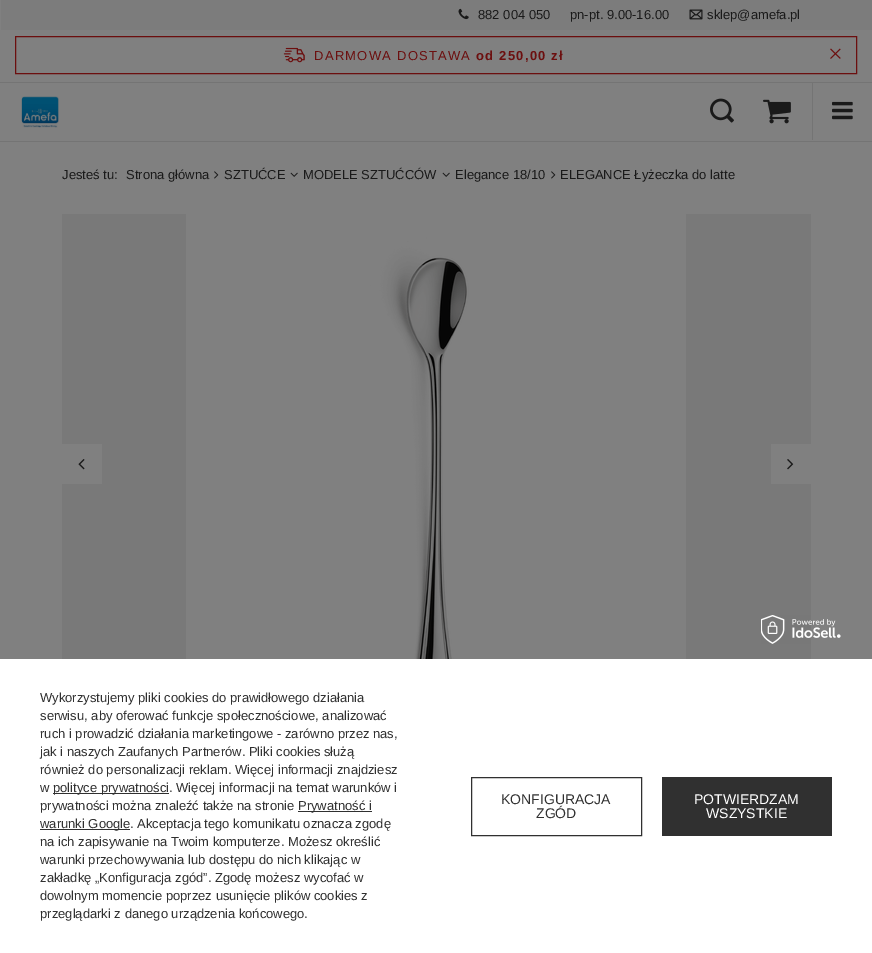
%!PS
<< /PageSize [872 953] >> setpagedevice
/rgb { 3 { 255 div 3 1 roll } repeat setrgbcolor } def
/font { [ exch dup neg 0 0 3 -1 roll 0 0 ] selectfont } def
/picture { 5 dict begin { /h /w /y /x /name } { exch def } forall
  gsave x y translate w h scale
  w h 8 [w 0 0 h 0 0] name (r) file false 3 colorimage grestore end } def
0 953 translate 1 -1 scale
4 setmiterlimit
128 128 128 rgb
0 0 872 953 rectfill
116 116 116 rgb
0 141 872 1 rectfill
124 124 124 rgb
1 0 871 30 rectfill
(img/1.rgb) 458 8 11 12 picture
(img/2.rgb) 689 9 14 11 picture
108 15 15 rgb
15.5 36.5 841 37 rectstroke
(img/3.rgb) 283 47 22 16 picture
(img/4.rgb) 830 48 11 11 picture
116 116 116 rgb
812 82 1 58 rectfill
0 82 872 1 rectfill
(img/5.rgb) 21 96 38 32 picture
(img/6.rgb) 710 98 24 25 picture
(img/7.rgb) 763 99 28 25 picture
(img/8.rgb) 832 101 21 19 picture
(img/9.rgb) 214 171 5 8 picture
(img/10.rgb) 290 172 8 5 picture
(img/10.rgb) 442 172 8 5 picture
(img/9.rgb) 551 171 5 8 picture
121 121 121 rgb
62 214 749 445 rectfill
(img/11.rgb) 186 214 500 445 picture
128 128 128 rgb
62 444 40 40 rectfill
(img/12.rgb) 78 459 7 11 picture
771 444 40 40 rectfill
(img/13.rgb) 787 459 7 11 picture
255 255 255 rgb
0 659 872 294 rectfill
(img/14.rgb) 761 615 80 29 picture
[
  [53 793 116 1 48 48 48]
  [298 811 74 1 48 48 48]
  [40 829 90 1 48 48 48]
] { aload pop rgb rectfill } forall
471.5 777.5 170 58 rectstroke
662 777 170 59 rectfill
/LiberationSans-Regular 13 font
26 26 26 rgb
[
  [(882 004 050) 478 19]
  [(pn-pt. 9.00-16.00) 570 19]
  [(sklep@amefa.pl) 707 19]
] { aload pop moveto show } forall
108 15 15 rgb
314 60 moveto 1.25 0 (DARMOWA DOSTAWA) ashow
/LiberationSans-Bold 13 font
476 60 moveto 1.25 0 (od 250,00 zł) ashow
/LiberationSans-Regular 13 font
26 26 26 rgb
[
  [(Jesteś tu:) 62 179]
  [(Strona główna) 126 179]
  [(SZTUĆCE) 224 179]
  [(MODELE SZTUĆCÓW) 303 179]
  [(Elegance 18/10) 455 179]
  [(ELEGANCE Łyżeczka do latte) 560 179]
] { aload pop moveto show } forall
48 48 48 rgb
[
  [(Wykorzystujemy pliki cookies do prawidłowego działania) 40 702]
  [(serwisu, aby oferować funkcje społecznościowe, analizować) 40 720]
  [(ruch i prowadzić działania marketingowe - zarówno przez nas,) 40 738]
  [(jak i naszych Zaufanych Partnerów. Pliki cookies służą) 40 756]
  [(również do personalizacji reklam. Więcej informacji znajdziesz) 40 774]
  [(w) 40 792]
  [(polityce prywatności) 53 792]
  [(. Więcej informacji na temat warunków i) 169 792]
  [(prywatności można znaleźć także na stronie) 40 810]
  [(Prywatność i) 298 810]
  [(warunki Google) 40 828]
  [(. Akceptacja tego komunikatu oznacza zgodę) 130 828]
  [(na ich zapisywanie na Twoim komputerze. Możesz określić) 40 846]
  [(warunki przechowywania lub dostępu do nich klikając w) 40 864]
  [(zakładkę „Konfiguracja zgód”. Zgodę możesz wycofać w) 40 882]
  [(dowolnym momencie poprzez usunięcie plików cookies z) 40 900]
  [(przeglądarki z danego urządzenia końcowego.) 40 918]
] { aload pop moveto show } forall
/LiberationSans-Regular 14 font
501 804 moveto (KONFIGURACJA) show
536 818 moveto (ZGÓD) show
255 255 255 rgb
694 804 moveto (POTWIERDZAM) show
706 818 moveto (WSZYSTKIE) show
showpage
